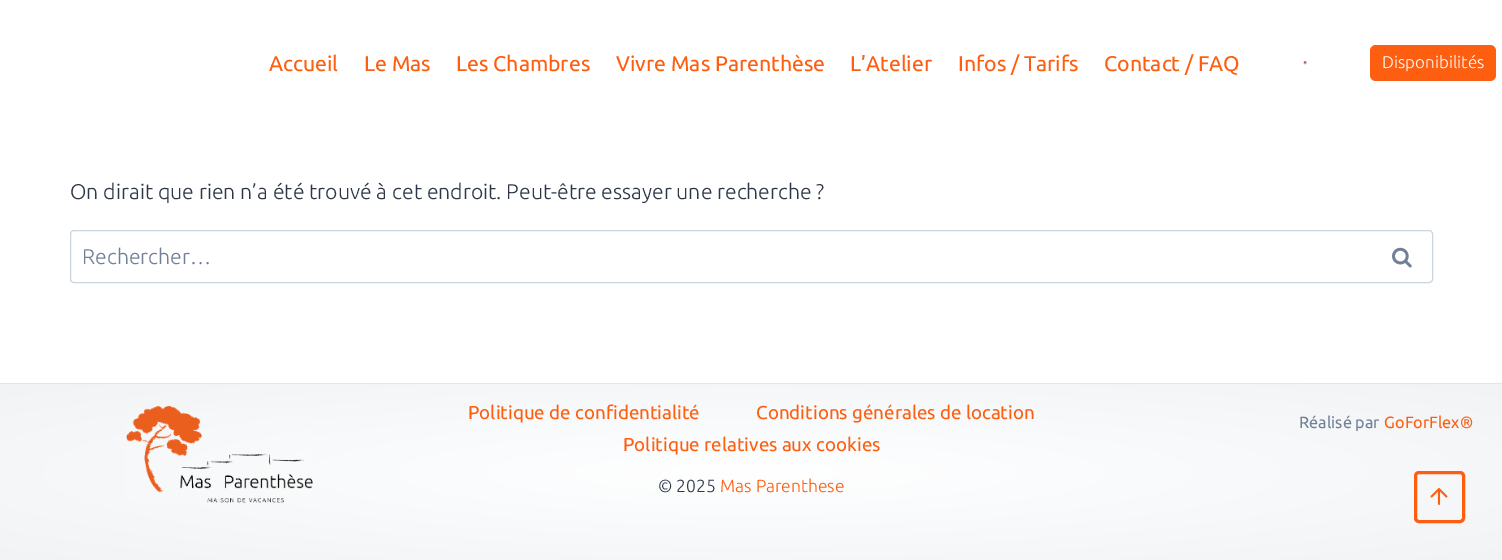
%!PS
<< /PageSize [1502 560] >> setpagedevice
/rgb { 3 { 255 div 3 1 roll } repeat setrgbcolor } def
/font { [ exch dup neg 0 0 3 -1 roll 0 0 ] selectfont } def
/roundrect { 5 dict begin { /r /h /w /y /x } { exch def } forall
  x r add y moveto x w add y 2 copy h add r arct x w add y h add x 1 index r arct
  x y h add x y r arct x y 2 copy exch w add exch r arct closepath end } def
/picture { 5 dict begin { /h /w /y /x /name } { exch def } forall
  gsave x y translate w h scale
  w h 8 [w 0 0 h 0 0] name (r) file false 3 colorimage grestore end } def
0 560 translate 1 -1 scale
4 setmiterlimit
255 255 255 rgb
0 0 1502 560 rectfill
(img/1.rgb) 1303 61 4 4 picture
253 94 15 rgb
1370 45 126 36 6 roundrect fill
203 213 224 rgb
70.5 230.5 1362 52 3.5 roundrect stroke
(img/2.rgb) 1392 247 20 21 picture
gsave 0 384 moveto 1502 384 lineto 1502 560 lineto 0 560 lineto closepath clip newpath 751 473 translate 1062 127 scale
<< /ShadingType 3 /ColorSpace /DeviceRGB /Coords [0 0 0 0 0 1] /Extend [true true] /Function << /FunctionType 2 /Domain [0 1] /C0 [1 1 1] /C1 [0.945 0.953 0.961] /N 1 >> >> shfill grestore
gsave 0 383 moveto 1502 383 lineto 1502 384 lineto 0 384 lineto closepath clip newpath 751 473 translate 1062 127 scale
<< /ShadingType 3 /ColorSpace /DeviceRGB /Coords [0 0 0 0 0 1] /Extend [true true] /Function << /FunctionType 2 /Domain [0 1] /C0 [0.933 0.933 0.933] /C1 [0.886 0.894 0.902] /N 1 >> >> shfill grestore
(img/3.rgb) 126 406 187 97 picture
253 94 15 rgb
3 setlinewidth
1415.5 472.5 48 49 3.5 roundrect stroke
(img/4.rgb) 1430 488 18 17 picture
/Ubuntu-Regular 21.25 font
[
  [(Accueil) 269 71]
  [(Le Mas) 364 71]
  [(Les Chambres) 456 71]
  [(Vivre Mas Parenthèse) 616 71]
  [(L’Atelier) 850 71]
  [(Infos / Tarifs) 958 71]
  [(Contact / FAQ) 1104 71]
] { aload pop moveto show } forall
/Ubuntu-Light 17 font
255 255 255 rgb
1382 68 moveto (Disponibilités) show
/Ubuntu-Light 21.25 font
45 55 72 rgb
70 199 moveto (On dirait que rien n’a été trouvé à cet endroit. Peut-être essayer une recherche ?) show
113 128 150 rgb
82 264 moveto (Rechercher…) show
/Ubuntu-Regular 18.75 font
253 94 15 rgb
[
  [(Politique de confidentialité) 468 419]
  [(Conditions générales de location) 756 419]
  [(Politique relatives aux cookies) 623 451]
] { aload pop moveto show } forall
/Ubuntu-Light 17.5 font
45 55 72 rgb
658 492 moveto (© 2025) show
253 94 15 rgb
720 492 moveto (Mas Parenthese) show
/Ubuntu-Regular 16.25 font
113 128 150 rgb
1299 428 moveto (Réalisé par) show
253 94 15 rgb
1384 428 moveto (GoForFlex®) show
showpage
